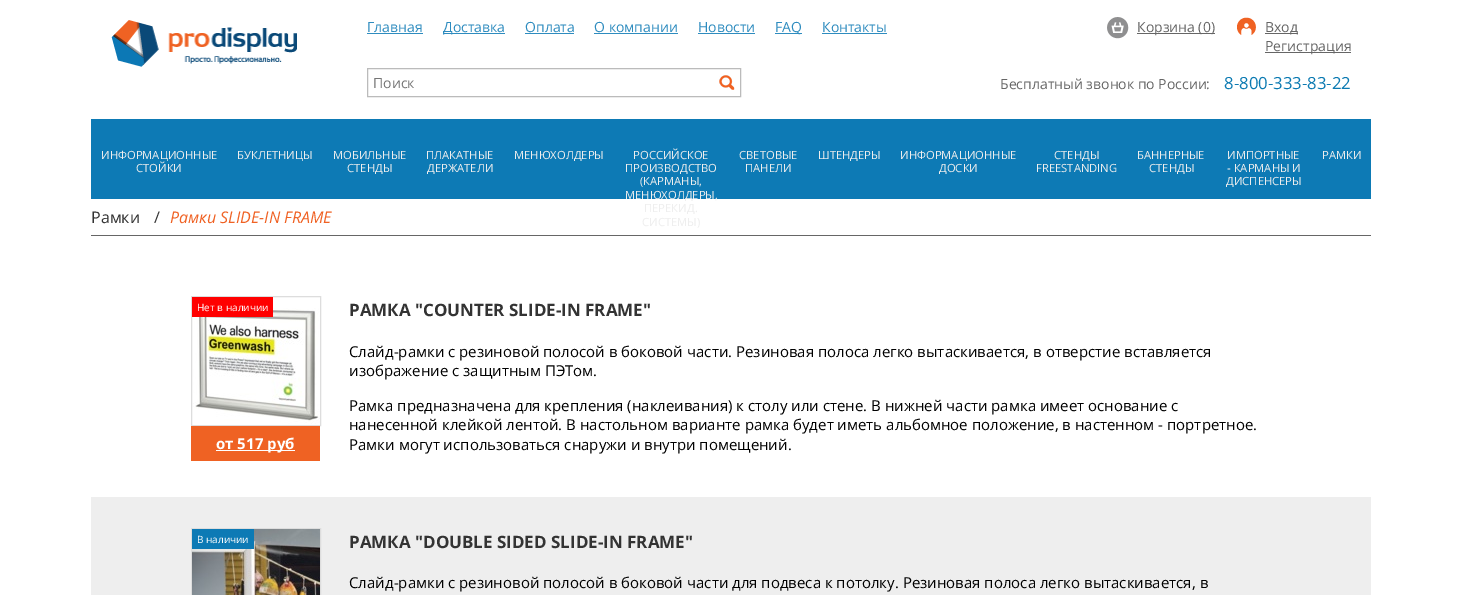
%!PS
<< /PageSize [1462 595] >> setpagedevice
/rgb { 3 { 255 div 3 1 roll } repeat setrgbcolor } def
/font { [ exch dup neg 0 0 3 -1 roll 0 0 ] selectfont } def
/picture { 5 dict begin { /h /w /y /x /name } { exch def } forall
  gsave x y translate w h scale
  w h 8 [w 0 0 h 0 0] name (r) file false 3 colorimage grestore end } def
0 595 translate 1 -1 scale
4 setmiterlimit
255 255 255 rgb
0 0 1462 595 rectfill
(img/1.rgb) 111 20 186 47 picture
[
  [367 33 56 1 46 140 191]
  [443 33 62 1 46 140 191]
  [525 33 49 1 46 140 191]
  [594 33 84 1 46 140 191]
  [698 33 57 1 46 140 191]
  [775 33 27 1 46 140 191]
  [822 33 65 1 46 140 191]
] { aload pop rgb rectfill } forall
(img/2.rgb) 1107 17 22 22 picture
102 102 102 rgb
1137 33 78 1 rectfill
(img/3.rgb) 1237 17 19 18 picture
1265 33 33 1 rectfill
1265 52 86 1 rectfill
187 187 187 rgb
367.5 68.5 373 28 rectstroke
(img/4.rgb) 719 75 16 15 picture
13 122 181 rgb
91 119 1280 80 rectfill
102 102 102 rgb
91 235 1280 1 rectfill
221 221 221 rgb
191.5 296.5 129 129 rectstroke
(img/5.rgb) 193 308 127 116 picture
[
  [192 297 81 20 255 0 0]
  [191 426 129 35 239 98 35]
  [216 450 79 1 255 255 255]
  [91 497 1280 98 238 238 238]
] { aload pop rgb rectfill } forall
221 221 221 rgb
191.5 528.5 129 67 rectstroke
(img/6.rgb) 192 529 128 66 picture
13 122 181 rgb
192 529 62 20 rectfill
/OpenSans-Regular 14 font
46 140 191 rgb
[
  [(Главная) 367 32]
  [(Доставка) 443 32]
  [(Оплата) 525 32]
  [(О компании) 594 32]
  [(Новости) 698 32]
  [(FAQ) 775 32]
  [(Контакты) 822 32]
] { aload pop moveto show } forall
102 102 102 rgb
[
  [(Корзина \(0\)) 1137 32]
  [(Вход) 1265 32]
  [(Регистрация) 1265 51]
] { aload pop moveto show } forall
117 117 117 rgb
373 88 moveto (Поиск) show
102 102 102 rgb
1000 89 moveto (Бесплатный звонок по России:) show
/OpenSans-Regular 16.75 font
11 122 178 rgb
1224 89 moveto (8-800-333-83-22) show
/OpenSans-Regular 11.25 font
238 238 238 rgb
[
  [(ИНФОРМАЦИОННЫЕ) 101 159]
  [(СТОЙКИ) 136 172]
  [(БУКЛЕТНИЦЫ) 237 159]
  [(МОБИЛЬНЫЕ) 333 159]
  [(СТЕНДЫ) 347 172]
  [(ПЛАКАТНЫЕ) 426 159]
  [(ДЕРЖАТЕЛИ) 427 172]
  [(МЕНЮХОЛДЕРЫ) 514 159]
  [(РОССИЙСКОЕ) 633 159]
  [(ПРОИЗВОДСТВО) 625 172]
  [(\(КАРМАНЫ,) 640 185]
  [(МЕНЮХОЛДЕРЫ,) 625 199]
  [(ПЕРЕКИД.) 644 212]
  [(СИСТЕМЫ\)) 642 226]
  [(СВЕТОВЫЕ) 739 159]
  [(ПАНЕЛИ) 745 172]
  [(ШТЕНДЕРЫ) 818 159]
  [(ИНФОРМАЦИОННЫЕ) 900 159]
  [(ДОСКИ) 939 172]
  [(СТЕНДЫ) 1054 159]
  [(FREESTANDING) 1036 172]
  [(БАННЕРНЫЕ) 1137 159]
  [(СТЕНДЫ) 1149 172]
  [(ИМПОРТНЫЕ) 1227 159]
  [(- КАРМАНЫ И) 1227 172]
  [(ДИСПЕНСЕРЫ) 1226 185]
  [(РАМКИ) 1322 159]
] { aload pop moveto show } forall
/OpenSans-Regular 16 font
51 51 51 rgb
91 223 moveto (Рамки) show
154 223 moveto (/) show
/OpenSans-Italic 16 font
240 98 36 rgb
170 223 moveto (Рамки SLIDE-IN FRAME) show
/OpenSans-Regular 10 font
255 255 255 rgb
197 311 moveto (Нет в наличии) show
/OpenSans-Bold 15 font
216 449 moveto (от 517 руб) show
/OpenSans-Bold 17 font
51 51 51 rgb
349 316 moveto (РАМКА "COUNTER SLIDE-IN FRAME") show
/OpenSans-Regular 15 font
0 0 0 rgb
[
  [(Слайд-рамки с резиновой полосой в боковой части. Резиновая полоса легко вытаскивается, в отверстие вставляется) 349 357]
  [(изображение с защитным ПЭТом.) 349 376]
  [(Рамка предназначена для крепления \(наклеивания\) к столу или стене. В нижней части рамка имеет основание с) 349 411]
  [(нанесенной клейкой лентой. В настольном варианте рамка будет иметь альбомное положение, в настенном - портретное.) 349 430]
  [(Рамки могут использоваться снаружи и внутри помещений.) 349 450]
] { aload pop moveto show } forall
/OpenSans-Regular 10 font
255 255 255 rgb
197 543 moveto (В наличии) show
/OpenSans-Bold 17 font
51 51 51 rgb
349 548 moveto (РАМКА "DOUBLE SIDED SLIDE-IN FRAME") show
/OpenSans-Regular 15 font
0 0 0 rgb
349 588 moveto (Слайд-рамки с резиновой полосой в боковой части для подвеса к потолку. Резиновая полоса легко вытаскивается, в) show
showpage
